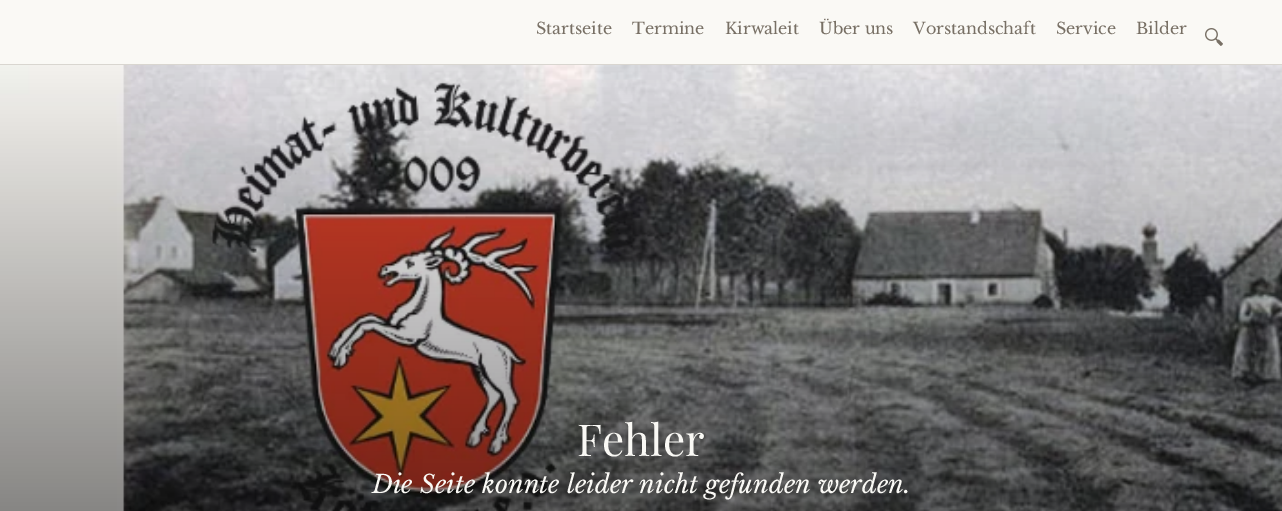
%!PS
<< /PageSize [1282 511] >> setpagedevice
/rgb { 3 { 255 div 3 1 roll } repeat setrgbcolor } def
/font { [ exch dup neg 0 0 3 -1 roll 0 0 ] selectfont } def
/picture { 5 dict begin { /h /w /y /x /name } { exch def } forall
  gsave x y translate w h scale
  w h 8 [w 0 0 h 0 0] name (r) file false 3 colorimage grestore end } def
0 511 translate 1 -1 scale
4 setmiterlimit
250 249 245 rgb
0 0 1282 511 rectfill
217 214 208 rgb
0 64 1282 1 rectfill
(img/1.rgb) 1205 28 18 18 picture
(img/2.rgb) 0 65 1282 446 picture
/LibreBaskerville-Regular 16 font
120 112 101 rgb
[
  [(Startseite) 536 34]
  [(Termine) 632 34]
  [(Kirwaleit) 725 34]
  [(Über uns) 819 34]
  [(Vorstandschaft) 913 34]
  [(Service) 1056 34]
  [(Bilder) 1136 34]
] { aload pop moveto show } forall
/PlayfairDisplay-Regular 44 font
250 249 245 rgb
577 456 moveto (Fehler) show
/LibreBaskerville-Italic 25 font
372 493 moveto (Die Seite konnte leider nicht gefunden werden.) show
showpage
